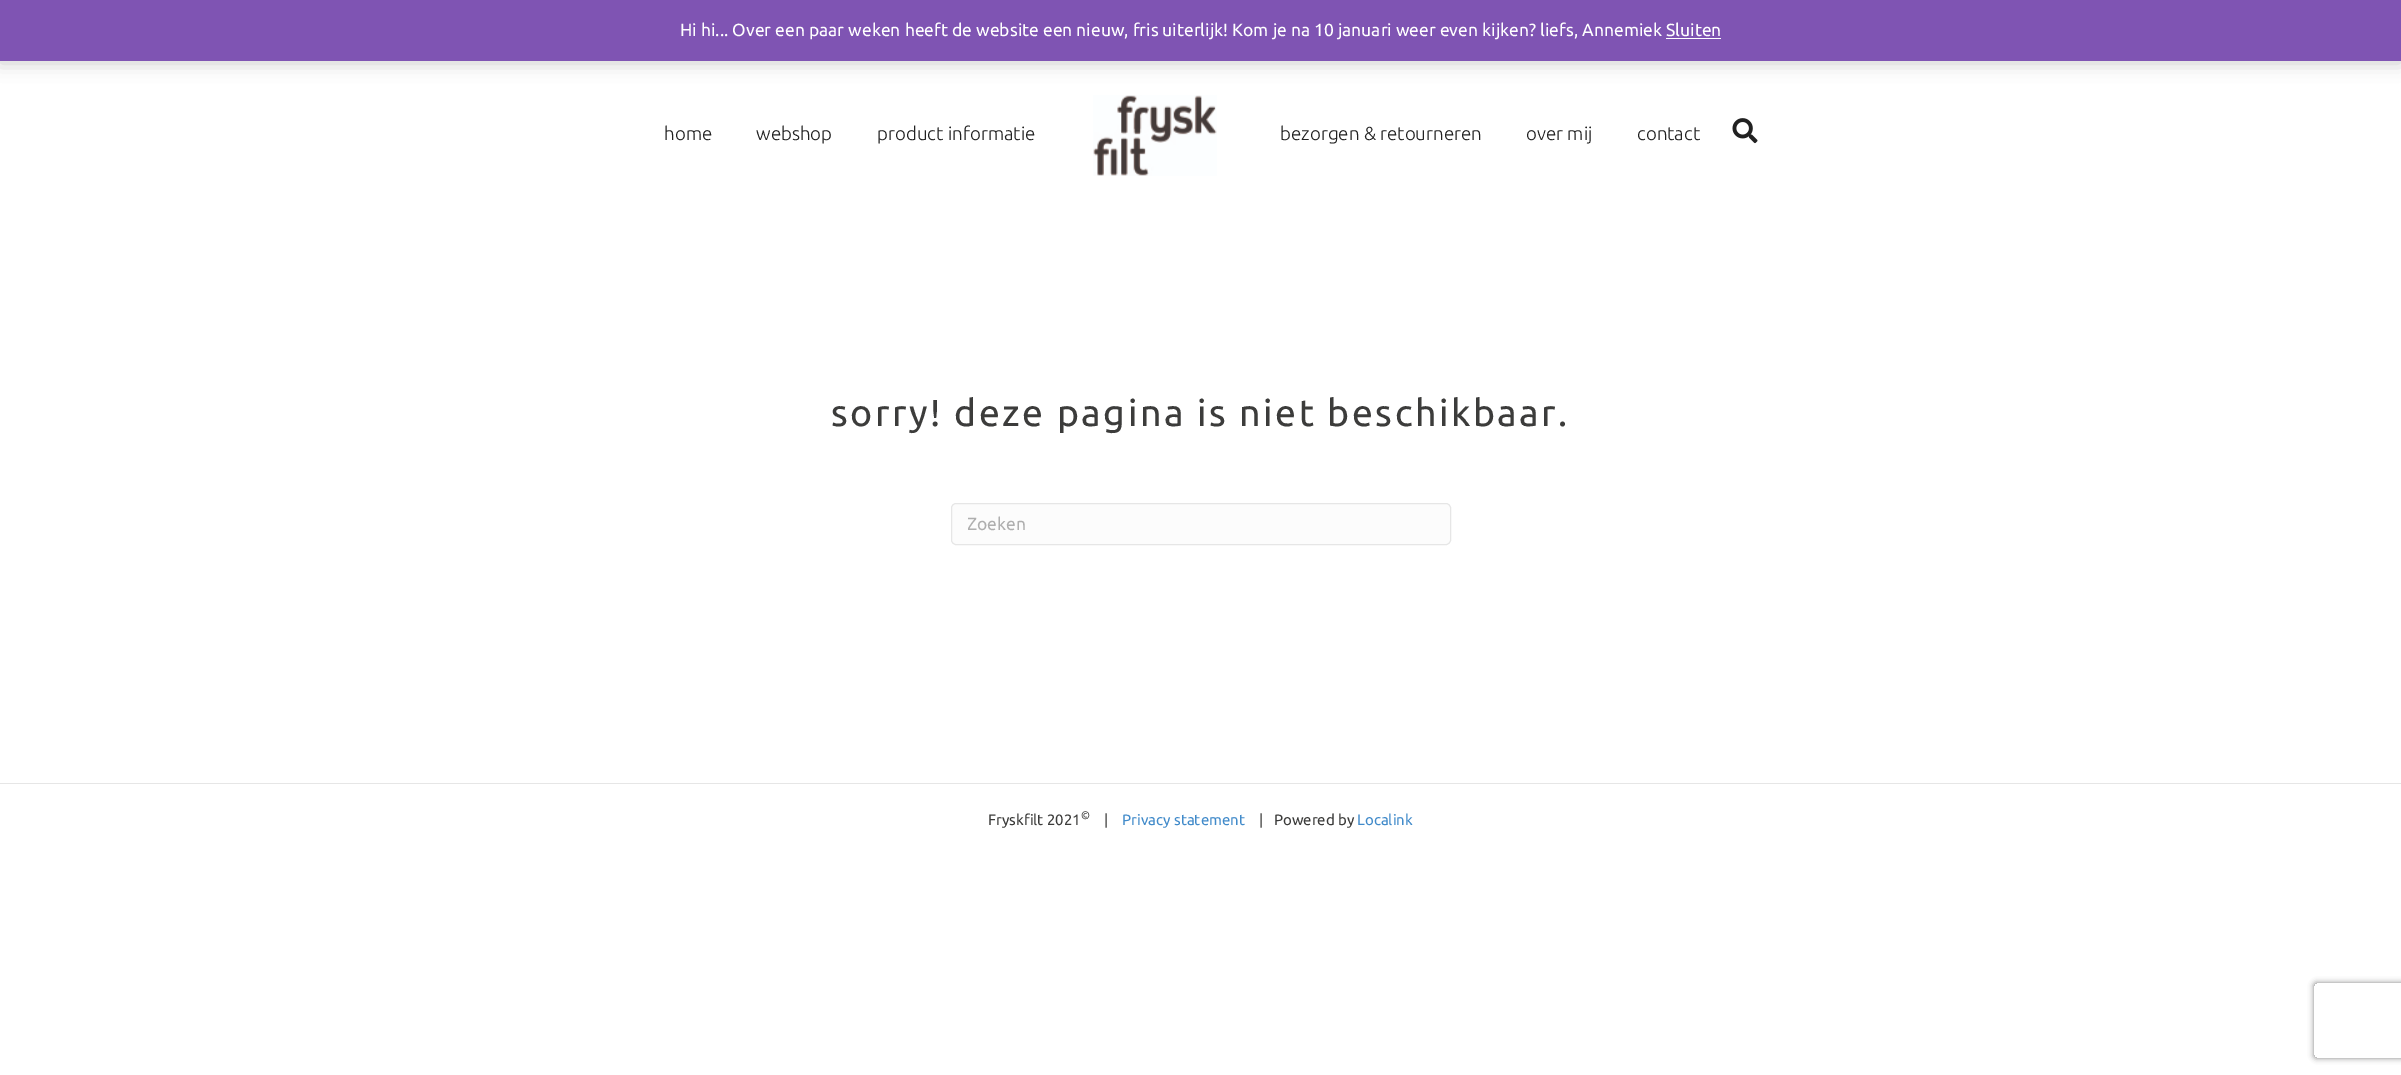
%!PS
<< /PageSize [2401 1075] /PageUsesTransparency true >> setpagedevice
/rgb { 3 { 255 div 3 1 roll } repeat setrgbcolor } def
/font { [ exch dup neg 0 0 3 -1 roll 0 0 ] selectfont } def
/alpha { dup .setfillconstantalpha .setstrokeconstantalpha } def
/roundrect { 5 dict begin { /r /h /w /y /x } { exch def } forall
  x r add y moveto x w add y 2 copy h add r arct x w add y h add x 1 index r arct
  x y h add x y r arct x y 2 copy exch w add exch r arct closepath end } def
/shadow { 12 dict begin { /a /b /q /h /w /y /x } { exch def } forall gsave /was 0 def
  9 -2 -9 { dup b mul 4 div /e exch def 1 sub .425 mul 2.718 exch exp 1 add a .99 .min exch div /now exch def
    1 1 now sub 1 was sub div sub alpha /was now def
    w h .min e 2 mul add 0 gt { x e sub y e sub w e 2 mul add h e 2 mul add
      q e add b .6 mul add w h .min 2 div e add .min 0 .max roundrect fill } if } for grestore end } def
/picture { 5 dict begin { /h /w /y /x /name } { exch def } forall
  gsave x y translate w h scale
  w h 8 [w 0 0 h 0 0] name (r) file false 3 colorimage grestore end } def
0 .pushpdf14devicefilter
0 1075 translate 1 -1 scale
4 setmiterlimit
255 255 255 rgb
0 0 2401 1075 rectfill
0 0 0 rgb
0 1 2401 62 0 9 0.2 shadow
127 84 179 rgb
0 0 2401 61 rectfill
255 255 255 rgb
1666 38 55 1 rectfill
(img/1.rgb) 1093 95 124 81 picture
(img/2.rgb) 1732 118 26 26 picture
252 252 252 rgb
951.5 503.5 499 41 4.5 roundrect gsave fill grestore
230 230 230 rgb
stroke
0 783 2401 1 rectfill
gsave
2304 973 moveto 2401 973 lineto 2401 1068 lineto 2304 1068 lineto closepath 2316.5 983 moveto 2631.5 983 lineto 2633 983 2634 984 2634 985.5 curveto 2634 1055.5 lineto 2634 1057 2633 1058 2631.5 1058 curveto 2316.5 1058 lineto 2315 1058 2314 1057 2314 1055.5 curveto 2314 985.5 lineto 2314 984 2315 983 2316.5 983 curveto closepath eoclip newpath
128 128 128 rgb
2314 983 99 75 2.5 3 1 shadow
grestore
/Ubuntu-Regular 17.5 font
255 255 255 rgb
680 36 moveto (Hi hi... Over een paar weken heeft de website een nieuw, fris uiterlijk! Kom je na 10 januari weer even kijken? liefs, Annemiek Sluiten) show
/Ubuntu-Light 18.75 font
33 33 33 rgb
[
  [(home) 664 140]
  [(webshop) 756 140]
  [(product informatie) 877 140]
  [(bezorgen & retourneren) 1280 140]
  [(over mij) 1526 140]
  [(contact) 1637 140]
] { aload pop moveto show } forall
/Ubuntu-Regular 37.5 font
60 60 59 rgb
831 426 moveto 2.5 0 (sorry! deze pagina is niet beschikbaar.) ashow
gsave
968 514 462 20 rectclip
/Ubuntu-Regular 17.5 font
175 175 175 rgb
967 530 moveto (Zoeken) show
grestore
/Ubuntu-Regular 15 font
988 825 moveto (Fryskfilt 2021) show
/Ubuntu-Regular 11 font
1081 819 moveto (©) show
/Ubuntu-Regular 15 font
1104 825 moveto (|) show
66 139 202 rgb
1122 825 moveto (Privacy statement) show
60 60 59 rgb
1259 825 moveto (|   Powered by) show
66 139 202 rgb
1357 825 moveto (Localink) show
.poppdf14devicefilter showpage
